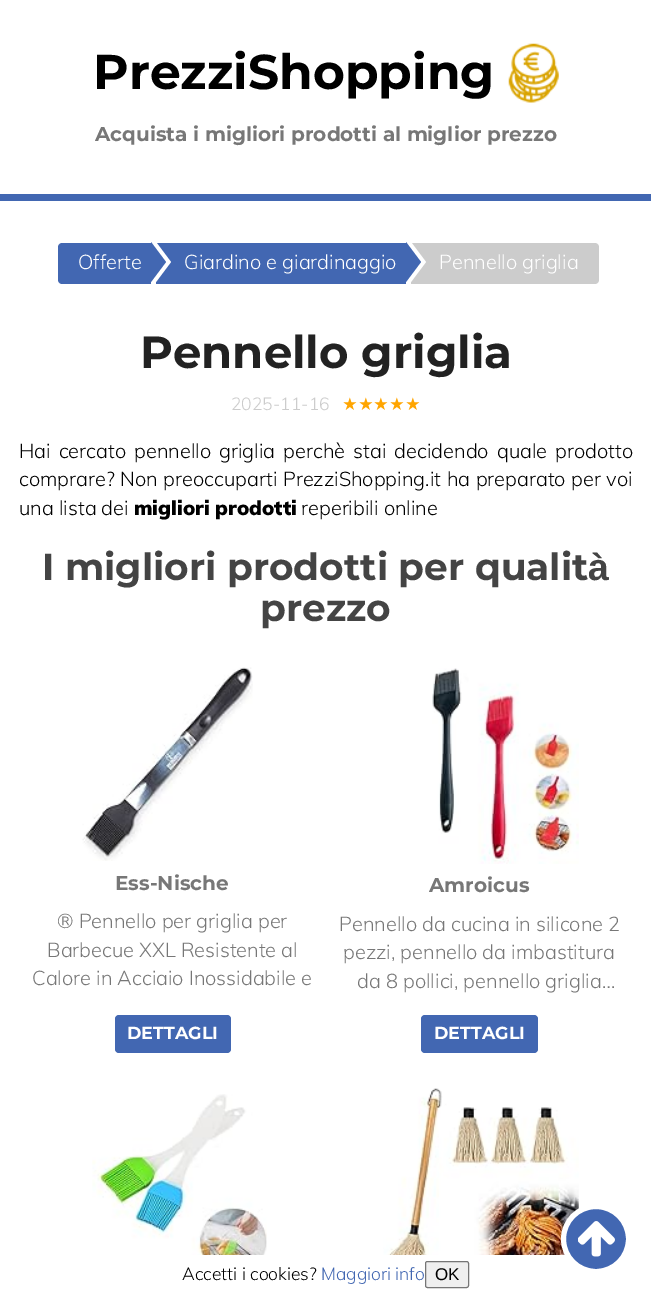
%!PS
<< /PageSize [651 1293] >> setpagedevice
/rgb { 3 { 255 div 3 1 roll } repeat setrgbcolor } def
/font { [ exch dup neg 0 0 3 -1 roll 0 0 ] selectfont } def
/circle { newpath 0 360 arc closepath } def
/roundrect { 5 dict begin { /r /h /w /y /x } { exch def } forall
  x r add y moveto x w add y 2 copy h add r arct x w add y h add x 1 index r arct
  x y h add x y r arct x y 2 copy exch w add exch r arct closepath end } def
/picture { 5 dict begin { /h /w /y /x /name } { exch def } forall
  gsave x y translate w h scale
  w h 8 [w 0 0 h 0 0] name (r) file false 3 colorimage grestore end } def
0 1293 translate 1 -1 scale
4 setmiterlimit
255 255 255 rgb
0 0 651 1293 rectfill
66 103 178 rgb
0 194 651 7 rectfill
(img/1.rgb) 508 43 51 60 picture
62 243 moveto 151 243 lineto 151 284 lineto 62 284 lineto 60 284 58 282 58 280 curveto 58 247 lineto 58 245 60 243 62 243 curveto closepath fill
156 243 250 41 rectfill
255 255 255 rgb
156 282 moveto 156 242 lineto 171 262 lineto closepath fill
66 103 178 rgb
151 282 moveto 151 242 lineto 166 262 lineto closepath fill
204 204 204 rgb
411 243 moveto 595 243 lineto 597 243 599 245 599 247 curveto 599 280 lineto 599 282 597 284 595 284 curveto 411 284 lineto closepath fill
255 255 255 rgb
411 282 moveto 411 242 lineto 426 262 lineto closepath fill
66 103 178 rgb
406 282 moveto 406 242 lineto 421 262 lineto closepath fill
(img/2.rgb) 82 667 171 194 picture
115 1015 116 38 4 roundrect fill
(img/3.rgb) 432 668 147 196 picture
421 1015 117 38 4 roundrect fill
(img/4.rgb) 92 1094 175 161 picture
(img/5.rgb) 383 1088 196 167 picture
239 239 239 rgb
425.5 1261.5 43 26 2 roundrect gsave fill grestore
118 118 118 rgb
stroke
66 103 178 rgb
596 1239 32.5 circle gsave fill grestore
255 255 255 rgb
5 setlinewidth
stroke
(img/6.rgb) 578 1221 37 36 picture
/Montserrat-Bold 48.75 font
0 0 0 rgb
93 89 moveto (PrezziShopping) show
/Montserrat-Bold 20 font
119 119 119 rgb
95 141 moveto (Acquista i migliori prodotti al miglior prezzo) show
/Muli-Light 20 font
255 255 255 rgb
[
  [(Offerte) 78 269]
  [(Giardino e giardinaggio) 184 269]
  [(Pennello griglia) 439 269]
] { aload pop moveto show } forall
/Montserrat-Bold 45 font
34 34 34 rgb
140 368 moveto (Pennello griglia) show
/Muli-Light 17.5 font
204 204 204 rgb
231 410 moveto (2025-11-16) show
/DejaVuSans-Regular 17.5 font
255 165 0 rgb
342 410 moveto (★★★★★) show
/Muli-Light 20 font
0 0 0 rgb
19 458 moveto 3 0 32 (Hai cercato pennello griglia perchè stai decidendo quale prodotto) widthshow
19 486 moveto 0.5 0 32 (comprare? Non preoccuparti PrezziShopping.it ha preparato per voi) widthshow
19 515 moveto (una lista dei) show
/Muli-Black 20 font
134 515 moveto (migliori prodotti) show
/Muli-Light 20 font
301 515 moveto (reperibili online) show
/Montserrat-Bold 37.5 font
68 68 68 rgb
42 580 moveto (I migliori prodotti per qualit) show
/LiberationSans-Bold 37.5 font
588 580 moveto (à) show
/Montserrat-Bold 37.5 font
260 621 moveto (prezzo) show
/Montserrat-Bold 20 font
119 119 119 rgb
115 890 moveto (Ess-Nische) show
/Muli-Light 20 font
[
  [(® Pennello per griglia per) 57 928]
  [(Barbecue XXL Resistente al) 47 957]
  [(Calore in Acciaio Inossidabile e) 32 985]
] { aload pop moveto show } forall
/Montserrat-Bold 17.5 font
255 255 255 rgb
127 1039 moveto (DETTAGLI) show
/Montserrat-Bold 20 font
119 119 119 rgb
429 892 moveto (Amroicus) show
/Muli-Light 20 font
[
  [(Pennello da cucina in silicone 2) 339 931]
  [(pezzi, pennello da imbastitura) 343 959]
  [(da 8 pollici, pennello griglia…) 357 988]
] { aload pop moveto show } forall
/Montserrat-Bold 17.5 font
255 255 255 rgb
434 1039 moveto (DETTAGLI) show
/Muli-Light 17.5 font
0 0 0 rgb
182 1280 moveto (Accetti i cookies?) show
66 103 178 rgb
321 1280 moveto (Maggiori info) show
/LiberationSans-Regular 17 font
0 0 0 rgb
435 1280 moveto (OK) show
showpage
